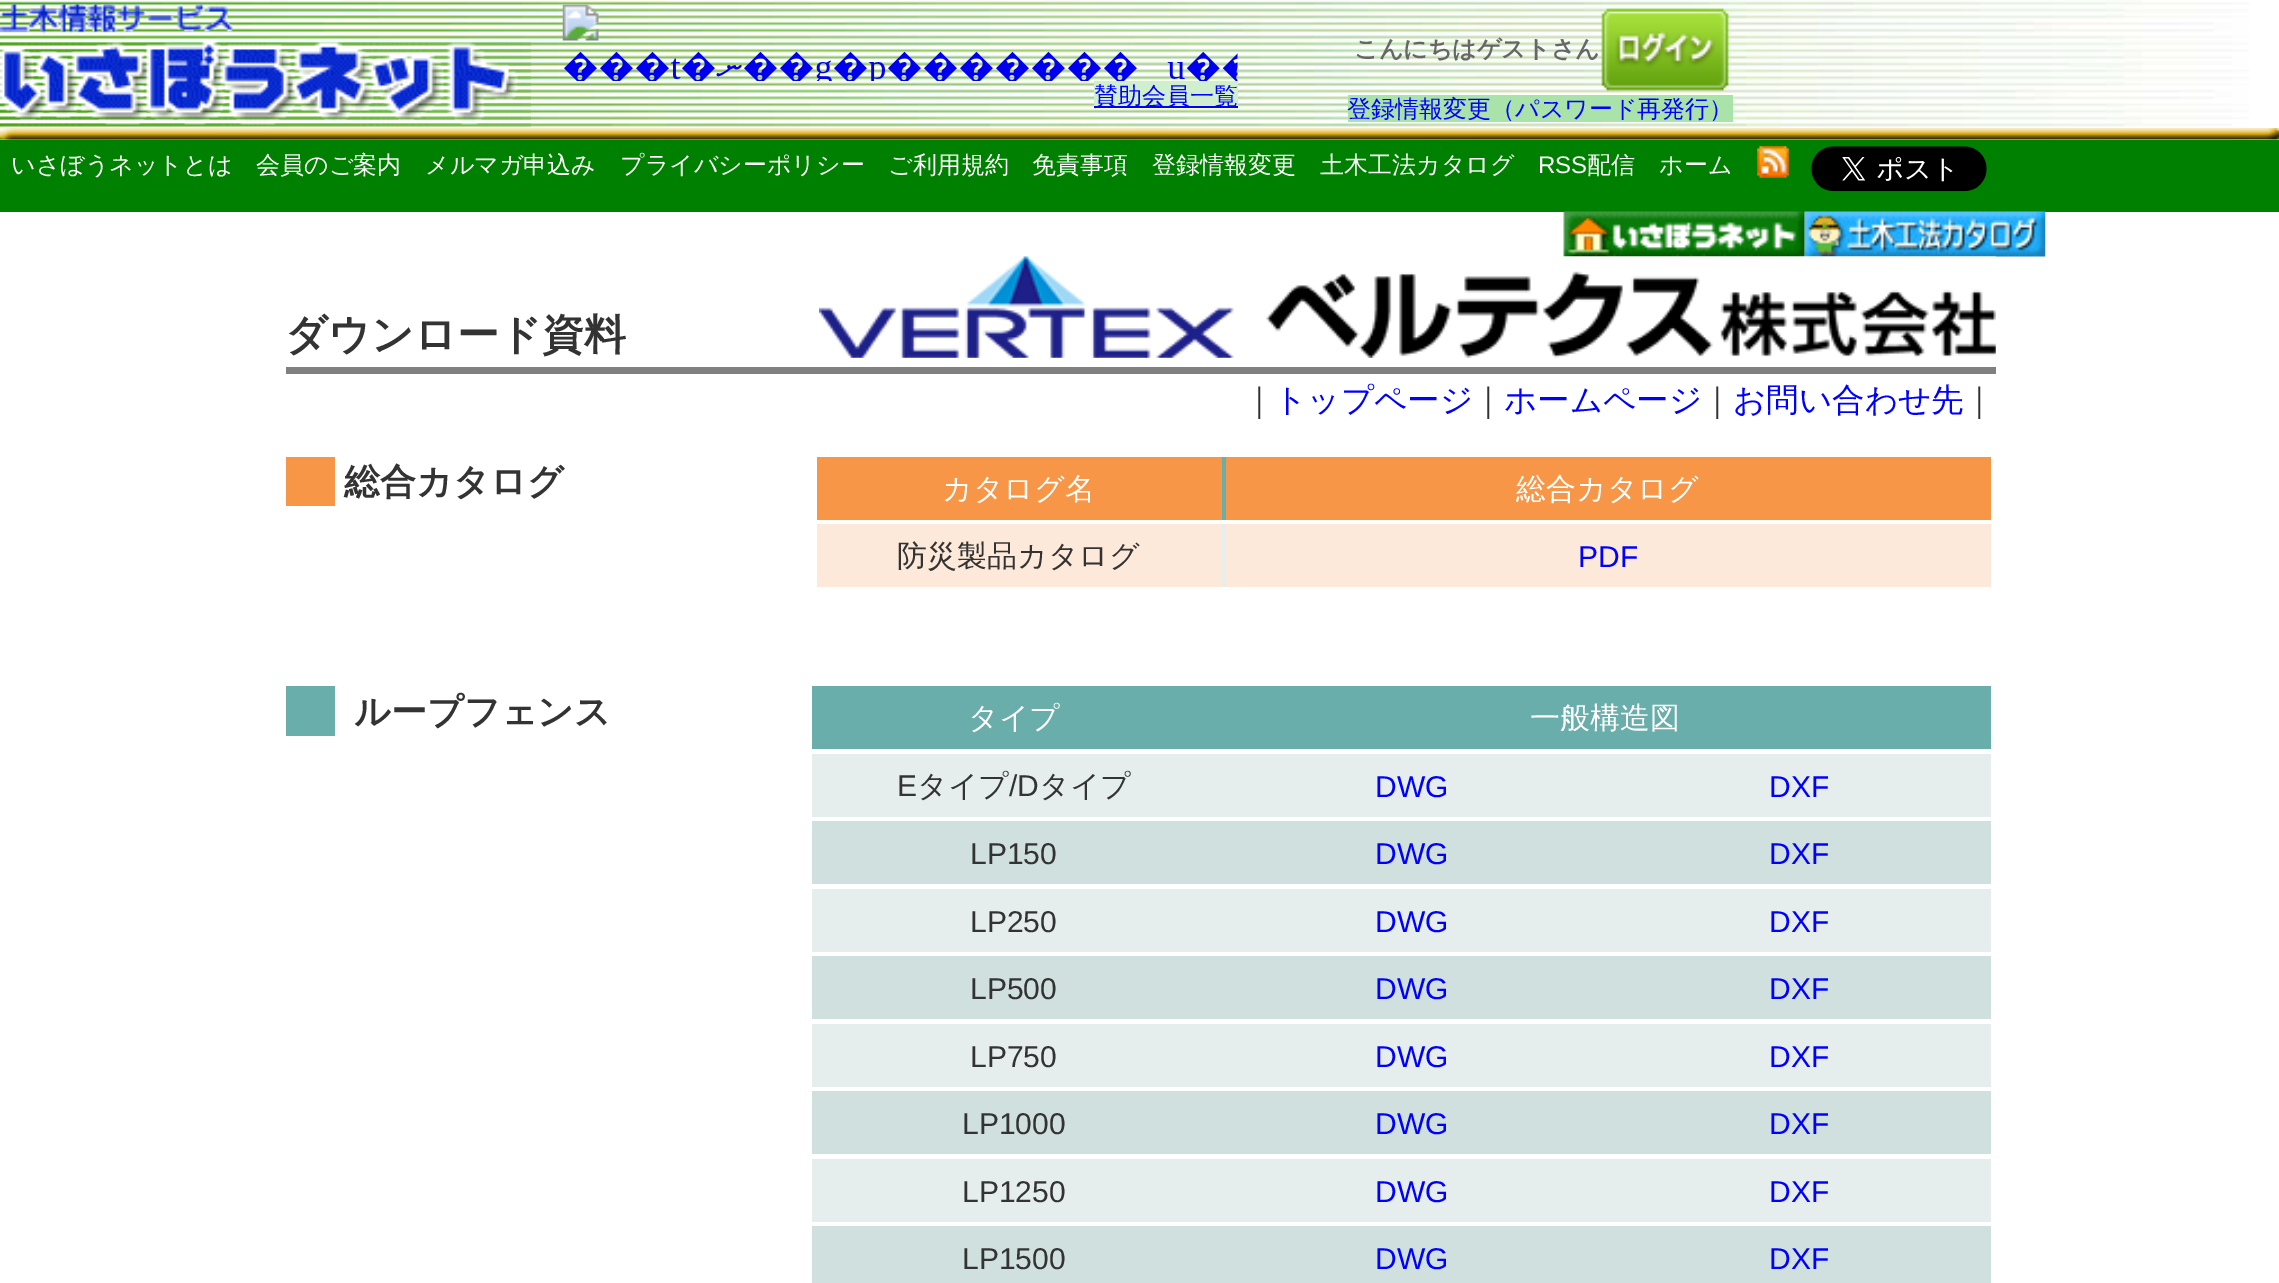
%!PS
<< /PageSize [2279 1283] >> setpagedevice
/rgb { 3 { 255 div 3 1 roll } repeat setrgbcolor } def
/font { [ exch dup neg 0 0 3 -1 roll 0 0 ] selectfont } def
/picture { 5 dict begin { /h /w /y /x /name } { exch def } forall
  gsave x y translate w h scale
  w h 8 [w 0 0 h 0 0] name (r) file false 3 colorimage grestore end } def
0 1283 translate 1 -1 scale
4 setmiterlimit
255 255 255 rgb
0 0 2279 1283 rectfill
(img/1.rgb) 0 0 2249 140 picture
(img/2.rgb) 0 4 233 31 picture
(img/3.rgb) 0 40 531 87 picture
(img/4.rgb) 562 4 676 77 picture
207 239 207 rgb
1094 81 144 25 rectfill
0 0 255 rgb
1094 106 144 2 rectfill
(img/5.rgb) 1601 8 128 83 picture
170 227 170 rgb
1348 95 385 27 rectfill
(img/6.rgb) 0 128 2279 12 picture
0 128 0 rgb
0 140 2279 72 rectfill
(img/7.rgb) 1757 146 32 32 picture
(img/8.rgb) 1811 146 176 46 picture
(img/10.rgb) 1804 211 242 46 picture
(img/9.rgb) 1563 211 242 46 picture
(img/11.rgb) 819 256 1177 102 picture
[
  [286 367 1710 7 128 128 128]
  [286 457 49 49 247 150 70]
  [1222 457 4 63 106 174 171]
  [817 457 405 63 247 150 70]
  [1226 457 765 63 247 150 70]
  [1222 524 4 63 230 237 237]
  [817 524 405 63 253 233 217]
  [1226 524 765 63 253 233 217]
  [286 686 49 50 106 174 171]
  [812 686 1179 63 106 174 171]
  [812 754 1179 63 230 237 237]
  [812 821 1179 63 207 224 223]
  [812 889 1179 63 230 237 237]
  [812 956 1179 63 207 224 223]
  [812 1024 1179 63 230 237 237]
  [812 1091 1179 63 207 224 223]
  [812 1159 1179 63 230 237 237]
  [812 1226 1179 57 207 224 223]
] { aload pop rgb rectfill } forall
/WenQuanYiZenHei-Medium 24 font
0 0 255 rgb
1094 104 moveto (賛助会員一覧) show
/WenQuanYiZenHei-Bold 24 font
102 102 102 rgb
1354 57 moveto (こんにちはゲストさん) show
/WenQuanYiZenHei-Medium 24 font
0 0 255 rgb
1347 117 moveto (登録情報変更（パスワード再発行）) show
255 255 255 rgb
[
  [(いさぼうネットとは) 11 173]
  [(会員のご案内) 256 173]
  [(メルマガ申込み) 425 173]
  [(プライバシーポリシー) 620 173]
  [(ご利用規約) 888 173]
  [(免責事項) 1032 173]
  [(登録情報変更) 1152 173]
  [(土木工法カタログ) 1320 173]
] { aload pop moveto show } forall
/LiberationSans-Regular 24 font
1538 173 moveto (RSS) show
/WenQuanYiZenHei-Medium 24 font
1587 173 moveto (配信) show
1659 173 moveto (ホーム) show
/WenQuanYiZenHei-Bold 42 font
51 51 51 rgb
285 349 moveto (ダウンロード資料) show
/WenQuanYiZenHei-Medium 32.5 font
1243 411 moveto (｜) show
0 0 255 rgb
1274 411 moveto (トップページ) show
51 51 51 rgb
1472 411 moveto (｜) show
0 0 255 rgb
1504 411 moveto (ホームページ) show
51 51 51 rgb
1701 411 moveto (｜) show
0 0 255 rgb
1733 411 moveto (お問い合わせ先) show
51 51 51 rgb
1963 411 moveto (｜) show
/WenQuanYiZenHei-Bold 36 font
344 494 moveto (総合カタログ) show
/WenQuanYiZenHei-Medium 30 font
255 255 255 rgb
942 499 moveto (カタログ名) show
1516 499 moveto (総合カタログ) show
51 51 51 rgb
897 566 moveto (防災製品カタログ) show
/LiberationSans-Regular 30 font
0 0 255 rgb
1578 567 moveto (PDF) show
/WenQuanYiZenHei-Bold 36 font
51 51 51 rgb
354 724 moveto (ループフェンス) show
/WenQuanYiZenHei-Medium 30 font
255 255 255 rgb
968 728 moveto (タイプ) show
1530 728 moveto (一般構造図) show
/LiberationSans-Regular 30 font
51 51 51 rgb
897 796 moveto (E) show
/WenQuanYiZenHei-Medium 30 font
917 796 moveto (タイプ) show
/LiberationSans-Regular 30 font
1009 796 moveto (/D) show
/WenQuanYiZenHei-Medium 30 font
1039 796 moveto (タイプ) show
/LiberationSans-Regular 30 font
0 0 255 rgb
1375 797 moveto (DWG) show
1769 797 moveto (DXF) show
51 51 51 rgb
970 864 moveto (LP150) show
0 0 255 rgb
1375 864 moveto (DWG) show
1769 864 moveto (DXF) show
51 51 51 rgb
970 932 moveto (LP250) show
0 0 255 rgb
1375 932 moveto (DWG) show
1769 932 moveto (DXF) show
51 51 51 rgb
970 999 moveto (LP500) show
0 0 255 rgb
1375 999 moveto (DWG) show
1769 999 moveto (DXF) show
51 51 51 rgb
970 1067 moveto (LP750) show
0 0 255 rgb
1375 1067 moveto (DWG) show
1769 1067 moveto (DXF) show
51 51 51 rgb
962 1134 moveto (LP1000) show
0 0 255 rgb
1375 1134 moveto (DWG) show
1769 1134 moveto (DXF) show
51 51 51 rgb
962 1202 moveto (LP1250) show
0 0 255 rgb
1375 1202 moveto (DWG) show
1769 1202 moveto (DXF) show
51 51 51 rgb
962 1269 moveto (LP1500) show
0 0 255 rgb
1375 1269 moveto (DWG) show
1769 1269 moveto (DXF) show
showpage
